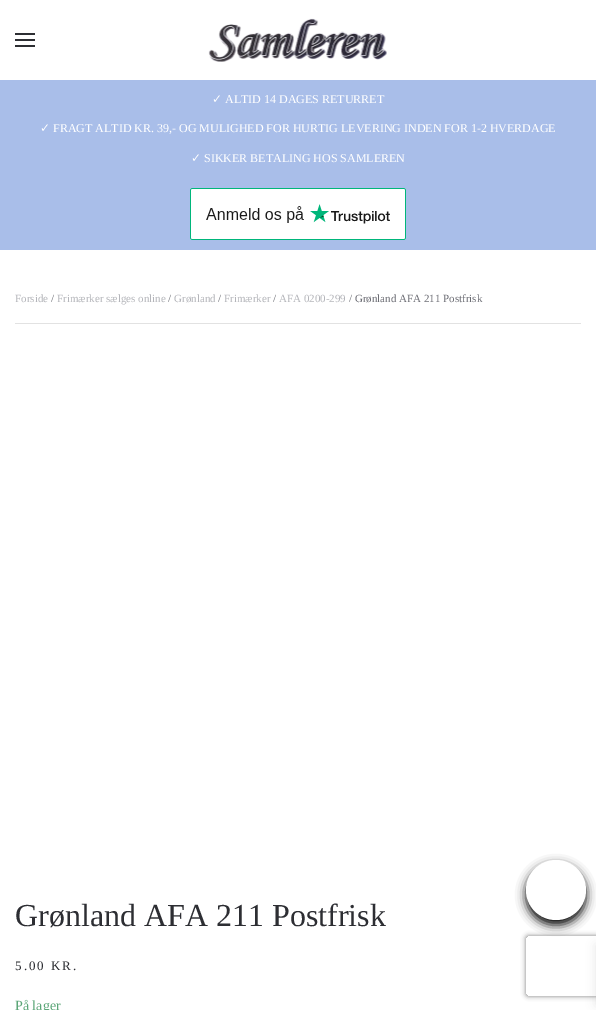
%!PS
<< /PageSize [596 1010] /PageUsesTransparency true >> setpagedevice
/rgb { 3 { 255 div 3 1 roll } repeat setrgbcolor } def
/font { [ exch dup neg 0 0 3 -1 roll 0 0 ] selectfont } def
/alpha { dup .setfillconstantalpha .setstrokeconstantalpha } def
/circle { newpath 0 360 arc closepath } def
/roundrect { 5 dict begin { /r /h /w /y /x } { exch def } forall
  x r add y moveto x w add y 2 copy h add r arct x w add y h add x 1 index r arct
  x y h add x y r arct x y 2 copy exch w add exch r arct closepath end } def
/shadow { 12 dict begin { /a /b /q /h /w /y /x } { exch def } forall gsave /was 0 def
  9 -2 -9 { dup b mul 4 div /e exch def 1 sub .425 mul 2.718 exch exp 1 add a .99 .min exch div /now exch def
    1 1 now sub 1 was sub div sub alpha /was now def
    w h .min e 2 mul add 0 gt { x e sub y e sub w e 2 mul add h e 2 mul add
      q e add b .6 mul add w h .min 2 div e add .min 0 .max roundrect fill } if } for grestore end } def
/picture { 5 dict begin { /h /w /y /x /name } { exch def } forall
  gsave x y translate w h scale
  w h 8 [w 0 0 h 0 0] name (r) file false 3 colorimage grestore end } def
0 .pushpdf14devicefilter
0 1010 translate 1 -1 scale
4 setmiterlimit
255 255 255 rgb
0 0 596 1010 rectfill
[
  [15 33 20 2 45 46 51]
  [15 39 20 2 45 46 51]
  [15 45 20 2 45 46 51]
] { aload pop rgb rectfill } forall
(img/1.rgb) 208 18 179 44 picture
169 190 233 rgb
0 80 596 170 rectfill
(img/2.rgb) 190 188 216 52 picture
226 226 226 rgb
15 323 566 1 rectfill
0 0 0 rgb
526 865 60 60 30 5 1 shadow
255 255 255 rgb
556 890 30 circle fill
0 0 0 rgb
596 945 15 60 0 5 0.1 shadow
gsave
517 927 moveto 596 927 lineto 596 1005 lineto 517 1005 lineto closepath 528 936 moveto 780 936 lineto 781 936 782 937 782 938 curveto 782 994 lineto 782 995 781 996 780 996 curveto 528 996 lineto 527 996 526 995 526 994 curveto 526 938 lineto 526 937 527 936 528 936 curveto closepath eoclip newpath
128 128 128 rgb
526 936 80 60 2 2.5 1 shadow
grestore
/DejaVuSans-Regular 12 font
255 255 255 rgb
212 103 moveto (✓) show
/LiberationSerif-Regular 12 font
225 103 moveto (ALTID 14 DAGES RETURRET) show
/DejaVuSans-Regular 12 font
40 132 moveto (✓) show
/LiberationSerif-Regular 12 font
53 132 moveto (FRAGT ALTID KR. 39,- OG MULIGHED FOR HURTIG LEVERING INDEN FOR 1-2 HVERDAGE) show
/DejaVuSans-Regular 12 font
191 162 moveto (✓) show
/LiberationSerif-Regular 12 font
204 162 moveto (SIKKER BETALING HOS SAMLEREN) show
/LiberationSerif-Regular 11 font
180 181 186 rgb
15 302 moveto (Forside) show
108 109 116 rgb
51 302 moveto (/) show
180 181 186 rgb
57 302 moveto (Frimærker sælges online) show
108 109 116 rgb
168 302 moveto (/) show
180 181 186 rgb
174 302 moveto (Grønland) show
108 109 116 rgb
218 302 moveto (/) show
180 181 186 rgb
224 302 moveto (Frimærker) show
108 109 116 rgb
273 302 moveto (/) show
180 181 186 rgb
279 302 moveto (AFA 0200-299) show
108 109 116 rgb
349 302 moveto (/ Grønland AFA 211 Postfrisk) show
/LiberationSerif-Regular 32 font
45 46 51 rgb
15 926 moveto (Grønland AFA 211 Postfrisk) show
/LiberationSerif-Regular 13 font
15 970 moveto 2 0 (5.00 KR.) ashow
/LiberationSerif-Regular 14 font
92 166 120 rgb
15 1010 moveto (På lager) show
.poppdf14devicefilter showpage
